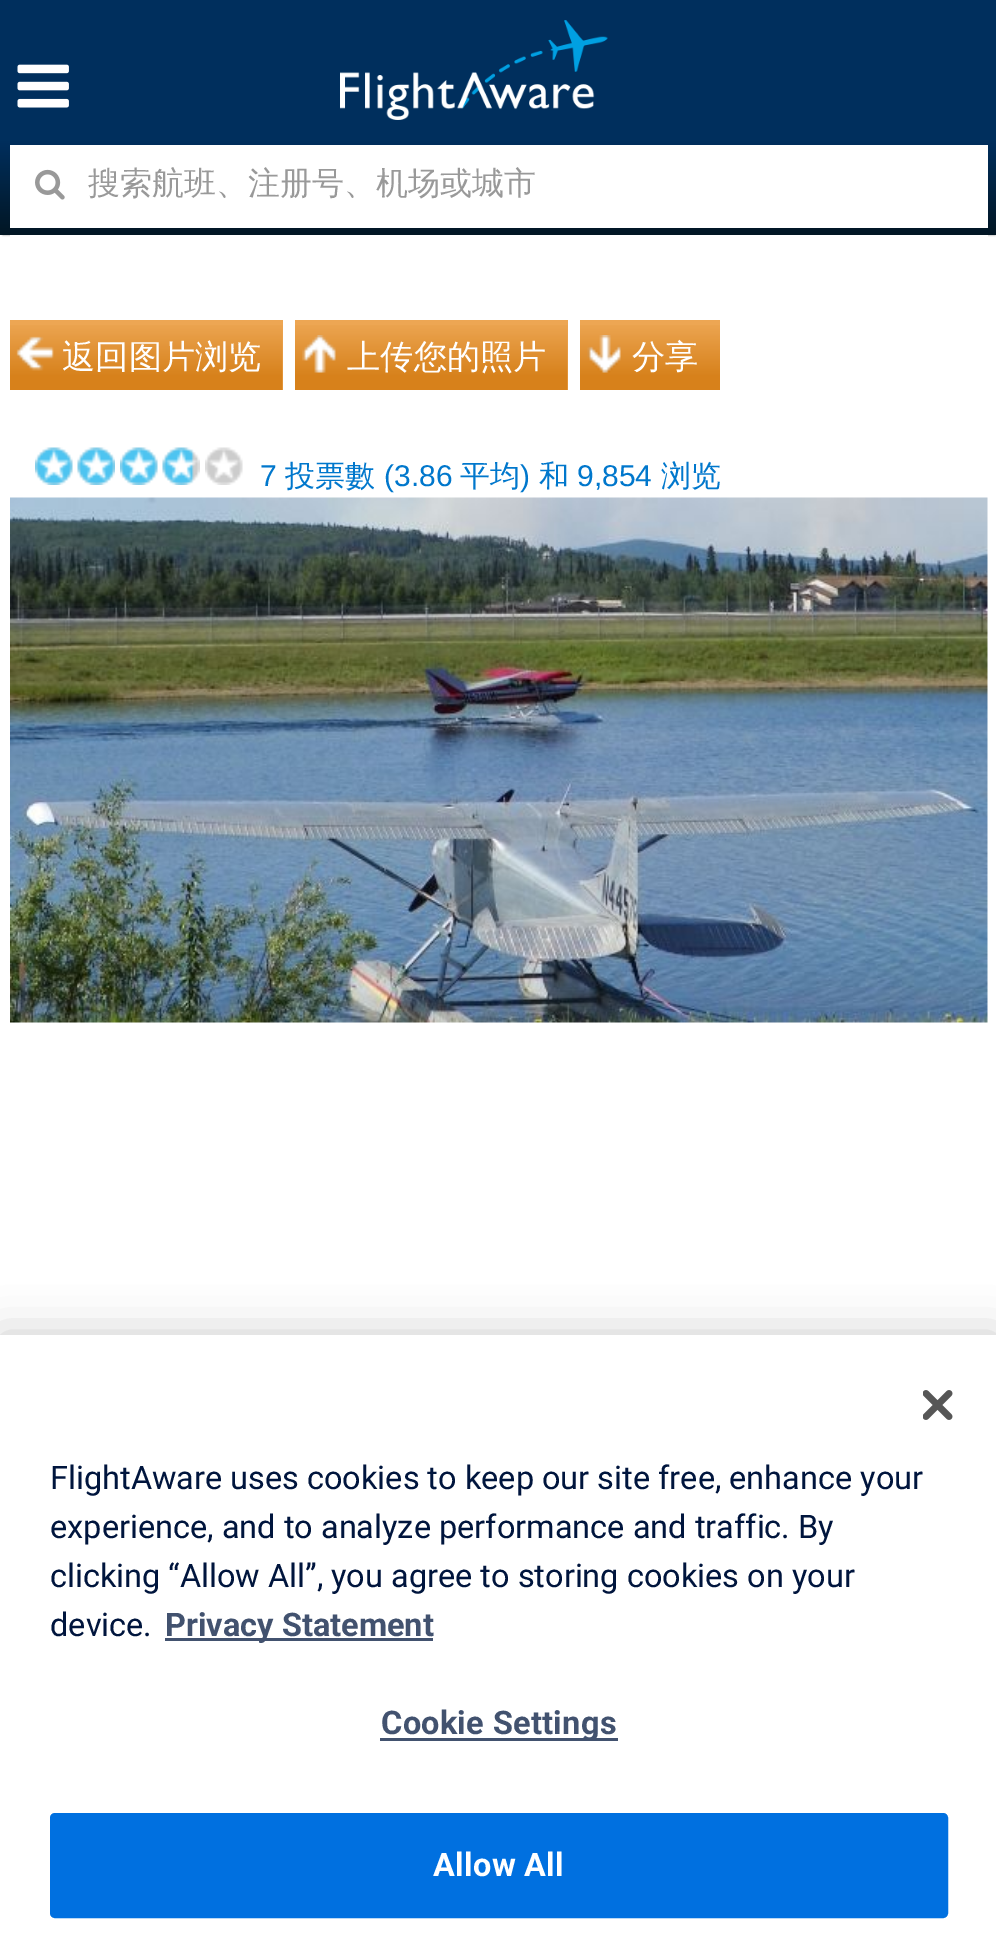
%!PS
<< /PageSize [996 1957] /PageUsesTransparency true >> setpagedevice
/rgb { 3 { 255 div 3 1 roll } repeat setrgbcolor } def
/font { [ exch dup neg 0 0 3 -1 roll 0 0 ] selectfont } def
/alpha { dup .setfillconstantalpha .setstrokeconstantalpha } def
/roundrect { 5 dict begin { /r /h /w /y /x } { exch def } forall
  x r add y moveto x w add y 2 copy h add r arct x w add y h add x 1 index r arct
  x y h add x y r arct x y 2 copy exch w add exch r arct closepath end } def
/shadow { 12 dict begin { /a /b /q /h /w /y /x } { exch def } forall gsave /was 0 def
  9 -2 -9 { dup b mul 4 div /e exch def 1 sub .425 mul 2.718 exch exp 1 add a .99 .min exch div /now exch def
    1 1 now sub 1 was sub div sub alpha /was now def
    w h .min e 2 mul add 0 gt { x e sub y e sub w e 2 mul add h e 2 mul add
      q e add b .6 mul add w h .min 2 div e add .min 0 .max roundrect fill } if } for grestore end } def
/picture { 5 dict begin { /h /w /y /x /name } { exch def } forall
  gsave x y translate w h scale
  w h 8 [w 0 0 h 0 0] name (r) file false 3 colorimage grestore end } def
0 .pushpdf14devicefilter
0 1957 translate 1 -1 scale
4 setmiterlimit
255 255 255 rgb
0 0 996 1957 rectfill
136 136 136 rgb
3 5 992 230 0 1 1 shadow
gsave 0 0 moveto 996 0 lineto 996 235 lineto 0 235 lineto closepath clip newpath
<< /ShadingType 2 /ColorSpace /DeviceRGB /Coords [499 0 499 235] /Extend [true true] /Function << /FunctionType 3 /Domain [0 1] /Functions [<< /FunctionType 2 /Domain [0 1] /C0 [0 0.184 0.365] /C1 [0 0.184 0.365] /N 1 >> << /FunctionType 2 /Domain [0 1] /C0 [0 0.184 0.365] /C1 [0.008 0.086 0.141] /N 1 >>] /Bounds [0.6] /Encode [0 1 0 1] >> >> shfill grestore
(img/1.rgb) 17 64 52 44 picture
(img/2.rgb) 340 20 268 100 picture
255 255 255 rgb
10 145 978 83 rectfill
(img/3.rgb) 35 169 30 31 picture
10 235 978 2 rectfill
237 166 83 rgb
10 320 273 70 rectfill
(img/4.rgb) 10 325 273 65 picture
(img/5.rgb) 16 336 38 35 picture
295 320 273 70 rectfill
(img/4.rgb) 295 325 273 65 picture
(img/6.rgb) 302 335 34 38 picture
580 320 140 5 rectfill
(img/7.rgb) 580 325 140 65 picture
(img/8.rgb) 587 335 34 38 picture
(img/9.rgb) 35 447 38 38 picture
(img/10.rgb) 77 447 38 38 picture
(img/11.rgb) 120 447 38 38 picture
(img/12.rgb) 162 447 38 38 picture
(img/13.rgb) 205 447 38 38 picture
(img/14.rgb) 10 497 978 526 picture
0 0 0 rgb
0 1335 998 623 0 22.5 0.2 shadow
255 255 255 rgb
0 1335 996 622 rectfill
(img/15.rgb) 923 1390 30 30 picture
66 82 111 rgb
165 1638 268 3 rectfill
380 1738 238 3 rectfill
0 112 224 rgb
51.5 1814.5 895 102 3.5 roundrect gsave fill grestore
3 setlinewidth
stroke
/WenQuanYiZenHei-Medium 32 font
153 153 153 rgb
88 194 moveto (搜索航班、注册号、机场或城市) show
/WenQuanYiZenHei-Medium 33.25 font
255 255 255 rgb
[
  [(返回图片浏览) 62 368]
  [(上传您的照片) 347 368]
  [(分享) 632 368]
] { aload pop moveto show } forall
/LiberationSans-Regular 30 font
0 119 204 rgb
260 486 moveto (7) show
/WenQuanYiZenHei-Medium 30 font
285 486 moveto (投票數) show
/LiberationSans-Regular 30 font
384 486 moveto (\(3.86) show
/WenQuanYiZenHei-Medium 30 font
460 486 moveto (平均) show
/LiberationSans-Regular 30 font
520 486 moveto (\)) show
/WenQuanYiZenHei-Medium 30 font
539 486 moveto (和) show
/LiberationSans-Regular 30 font
577 486 moveto (9,854) show
/WenQuanYiZenHei-Medium 30 font
661 486 moveto (浏览) show
/Roboto-Regular 32.5 font
0 21 61 rgb
[
  [(FlightAware uses cookies to keep our site free, enhance your) 50 1489]
  [(experience, and to analyze performance and traffic. By) 50 1538]
  [(clicking “Allow All”, you agree to storing cookies on your) 50 1587]
  [(device.) 50 1636]
] { aload pop moveto show } forall
/Roboto-Bold 32.5 font
66 82 111 rgb
165 1636 moveto (Privacy Statement) show
381 1734 moveto 0.3 0 (Cookie Settings) ashow
255 255 255 rgb
433 1876 moveto 0.3 0 (Allow All) ashow
.poppdf14devicefilter showpage
